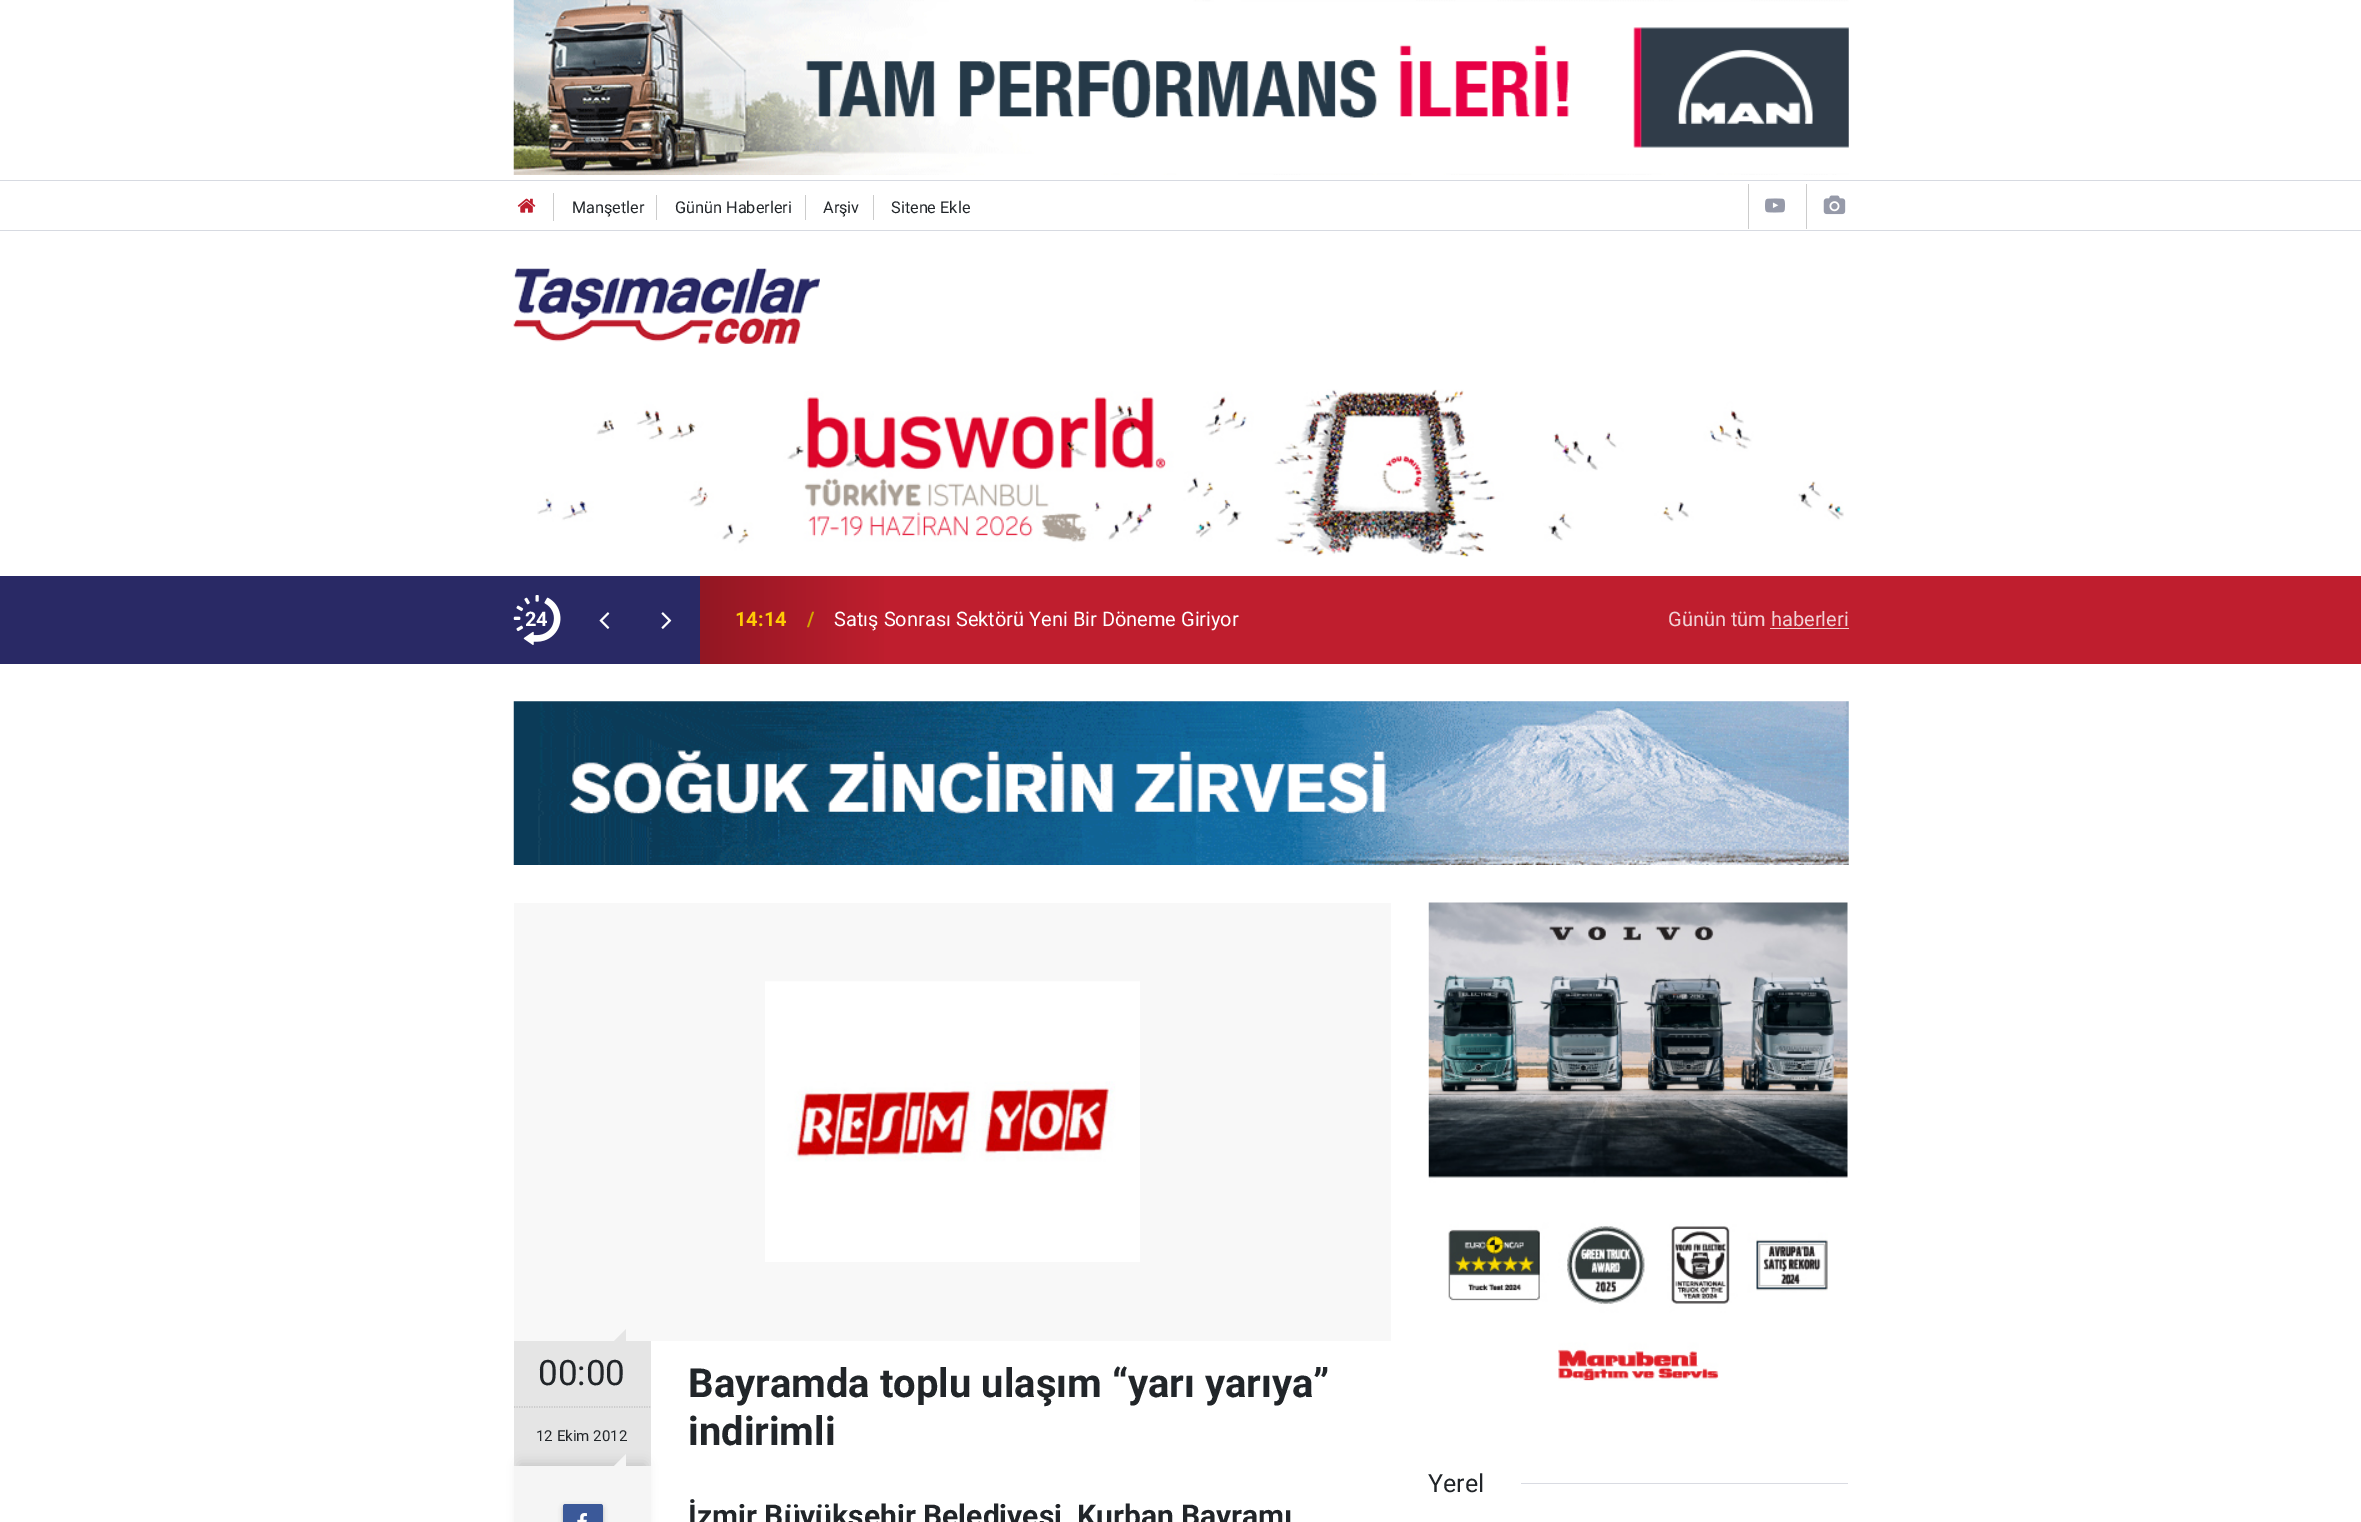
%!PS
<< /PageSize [2361 1522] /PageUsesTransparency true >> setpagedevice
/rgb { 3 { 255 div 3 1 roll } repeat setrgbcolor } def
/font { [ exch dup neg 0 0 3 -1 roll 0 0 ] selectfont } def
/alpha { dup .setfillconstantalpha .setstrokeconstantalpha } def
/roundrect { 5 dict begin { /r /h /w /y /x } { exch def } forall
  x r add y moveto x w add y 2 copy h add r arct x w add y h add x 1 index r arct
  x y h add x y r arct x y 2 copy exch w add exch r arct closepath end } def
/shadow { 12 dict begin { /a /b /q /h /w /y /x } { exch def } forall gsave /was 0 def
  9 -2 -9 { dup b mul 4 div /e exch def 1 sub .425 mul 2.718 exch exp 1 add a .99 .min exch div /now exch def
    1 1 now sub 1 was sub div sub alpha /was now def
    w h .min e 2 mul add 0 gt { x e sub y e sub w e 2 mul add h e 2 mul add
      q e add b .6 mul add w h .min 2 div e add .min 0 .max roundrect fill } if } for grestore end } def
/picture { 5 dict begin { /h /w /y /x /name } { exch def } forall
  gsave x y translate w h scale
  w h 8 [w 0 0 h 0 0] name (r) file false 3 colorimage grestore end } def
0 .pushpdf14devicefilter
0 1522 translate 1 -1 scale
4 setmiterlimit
255 255 255 rgb
0 0 2361 1522 rectfill
(img/1.rgb) 513 0 1336 175 picture
215 218 225 rgb
0 180 2361 1 rectfill
204 204 204 rgb
553 193 1 28 rectfill
(img/2.rgb) 517 198 19 15 picture
[
  [656 195 1 25 204 204 204]
  [805 195 1 25 204 204 204]
  [873 195 1 25 204 204 204]
  [1748 184 1 45 204 204 204]
] { aload pop rgb rectfill } forall
(img/3.rgb) 1765 198 20 15 picture
1806 184 1 45 rectfill
(img/4.rgb) 1823 195 23 20 picture
215 218 225 rgb
0 230 2361 1 rectfill
(img/5.rgb) 513 268 307 76 picture
(img/6.rgb) 537 389 1307 168 picture
41 41 101 rgb
0 576 514 88 rectfill
191 30 46 rgb
1849 576 512 88 rectfill
gsave 514 576 moveto 1849 576 lineto 1849 664 lineto 514 664 lineto closepath clip newpath
<< /ShadingType 2 /ColorSpace /DeviceRGB /Coords [513 620 1848 620] /Extend [true true] /Function << /FunctionType 3 /Domain [0 1] /Functions [<< /FunctionType 2 /Domain [0 1] /C0 [0.161 0.161 0.396] /C1 [0.161 0.161 0.396] /N 1 >> << /FunctionType 2 /Domain [0 1] /C0 [0.161 0.161 0.396] /C1 [0.161 0.161 0.396] /N 1 >> << /FunctionType 2 /Domain [0 1] /C0 [0.576 0.09 0.137] /C1 [0.749 0.118 0.18] /N 1 >> << /FunctionType 2 /Domain [0 1] /C0 [0.749 0.118 0.18] /C1 [0.749 0.118 0.18] /N 1 >>] /Bounds [0.05 0.14 0.28] /Encode [0 1 0 1 0 1 0 1] >> >> shfill grestore
(img/7.rgb) 513 595 48 50 picture
(img/8.rgb) 599 612 11 17 picture
(img/9.rgb) 661 612 11 17 picture
242 210 213 rgb
1770 628 79 1 rectfill
(img/10.rgb) 513 701 1336 164 picture
248 248 248 rgb
514 903 877 438 rectfill
(img/11.rgb) 765 981 375 281 picture
229 229 229 rgb
514 1341 137 125 rectfill
626 1341 moveto 614 1341 lineto 626 1329 lineto closepath fill
195 195 195 rgb
1.2 setlinewidth
[1.25 1.25] 0 setdash
514 1407 moveto 651 1407 lineto stroke
0 0 0 rgb
520 1464 125 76 0 6 0.15 shadow
245 245 245 rgb
514 1466 137 56 rectfill
626 1466 moveto 614 1466 lineto 626 1454 lineto closepath fill
50 50 50 rgb
563 1506 40 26 2.5 2.5 0.3 shadow
59 89 153 rgb
563 1504 40 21 2.5 roundrect fill
(img/12.rgb) 577 1513 10 9 picture
(img/13.rgb) 1428 902 420 479 picture
217 219 226 rgb
1521 1483 327 1 rectfill
/Roboto-Regular 16.25 font
33 37 41 rgb
[
  [(Manşetler) 572 213]
  [(Günün Haberleri) 675 213]
  [(Arşiv) 823 213]
  [(Sitene Ekle) 891 213]
] { aload pop moveto show } forall
/Roboto-Bold 20 font
255 255 255 rgb
525 626 moveto (24) show
255 203 5 rgb
735 626 moveto (14:14) show
209 166 0 rgb
807 626 moveto (/) show
/Roboto-Regular 20 font
255 255 255 rgb
834 626 moveto (Satış Sonrası Sektörü Yeni Bir Döneme Giriyor) show
242 210 213 rgb
1668 626 moveto (Günün tüm haberleri) show
/Roboto-Regular 35 font
33 37 41 rgb
538 1385 moveto (00:00) show
/Roboto-Regular 15 font
536 1441 moveto (12 Ekim 2012) show
/Roboto-Bold 40 font
688 1397 moveto (Bayramda toplu ulaşım “yarı yarıya”) show
688 1445 moveto (indirimli) show
/Roboto-Bold 30 font
688 1526 moveto (İzmir Büyükşehir Belediyesi, Kurban Bayramı) show
/Roboto-Regular 25 font
1428 1492 moveto (Yerel) show
.poppdf14devicefilter showpage
